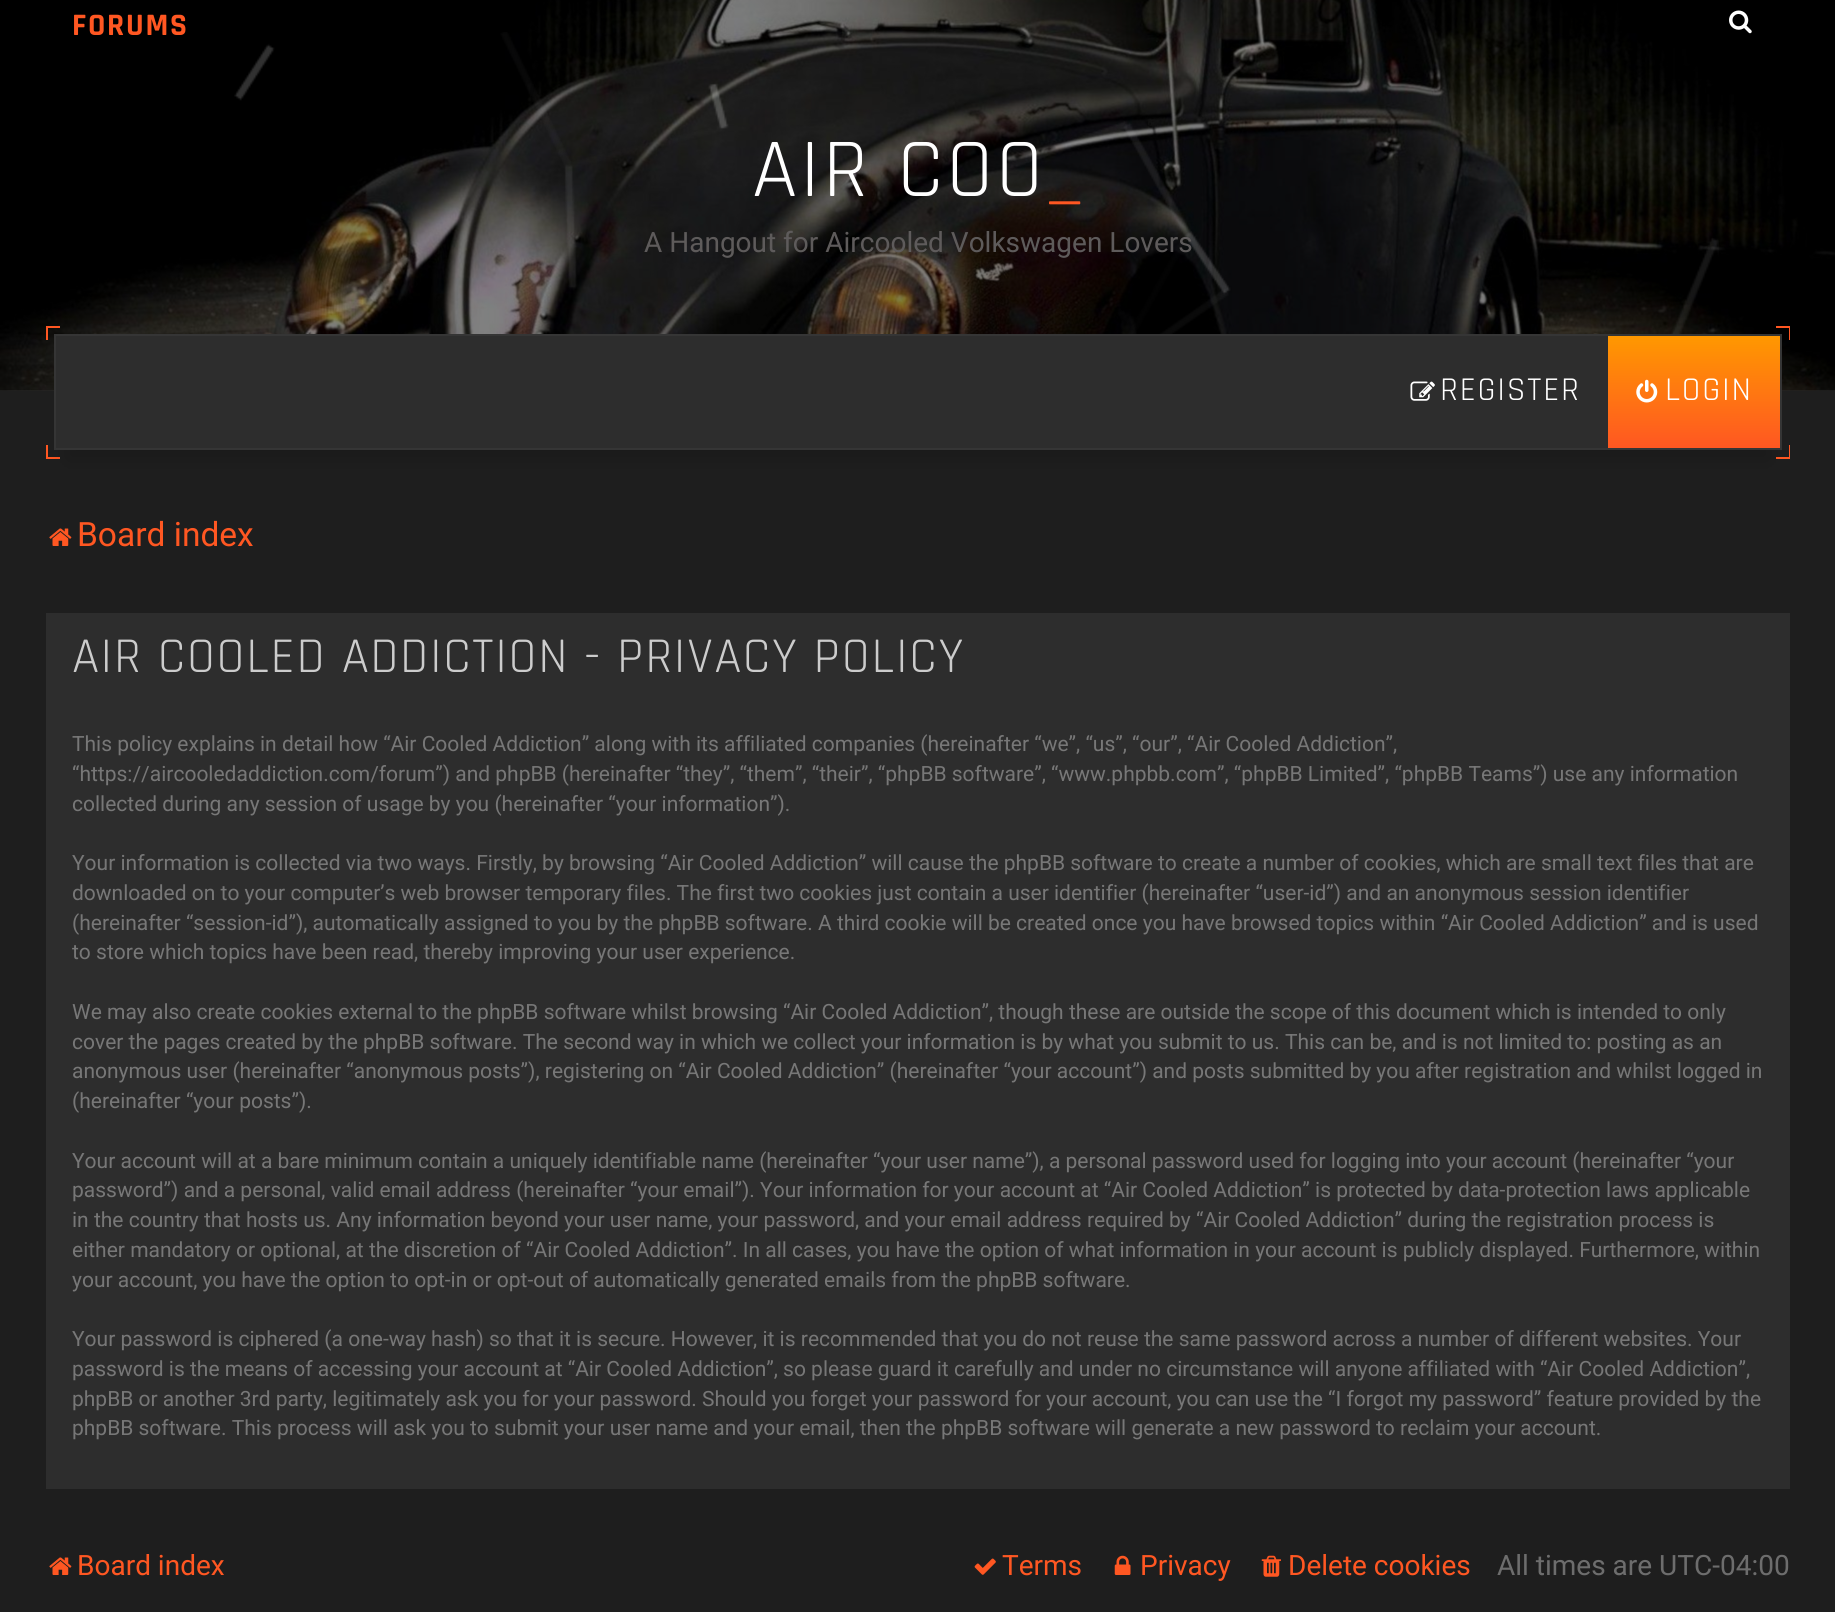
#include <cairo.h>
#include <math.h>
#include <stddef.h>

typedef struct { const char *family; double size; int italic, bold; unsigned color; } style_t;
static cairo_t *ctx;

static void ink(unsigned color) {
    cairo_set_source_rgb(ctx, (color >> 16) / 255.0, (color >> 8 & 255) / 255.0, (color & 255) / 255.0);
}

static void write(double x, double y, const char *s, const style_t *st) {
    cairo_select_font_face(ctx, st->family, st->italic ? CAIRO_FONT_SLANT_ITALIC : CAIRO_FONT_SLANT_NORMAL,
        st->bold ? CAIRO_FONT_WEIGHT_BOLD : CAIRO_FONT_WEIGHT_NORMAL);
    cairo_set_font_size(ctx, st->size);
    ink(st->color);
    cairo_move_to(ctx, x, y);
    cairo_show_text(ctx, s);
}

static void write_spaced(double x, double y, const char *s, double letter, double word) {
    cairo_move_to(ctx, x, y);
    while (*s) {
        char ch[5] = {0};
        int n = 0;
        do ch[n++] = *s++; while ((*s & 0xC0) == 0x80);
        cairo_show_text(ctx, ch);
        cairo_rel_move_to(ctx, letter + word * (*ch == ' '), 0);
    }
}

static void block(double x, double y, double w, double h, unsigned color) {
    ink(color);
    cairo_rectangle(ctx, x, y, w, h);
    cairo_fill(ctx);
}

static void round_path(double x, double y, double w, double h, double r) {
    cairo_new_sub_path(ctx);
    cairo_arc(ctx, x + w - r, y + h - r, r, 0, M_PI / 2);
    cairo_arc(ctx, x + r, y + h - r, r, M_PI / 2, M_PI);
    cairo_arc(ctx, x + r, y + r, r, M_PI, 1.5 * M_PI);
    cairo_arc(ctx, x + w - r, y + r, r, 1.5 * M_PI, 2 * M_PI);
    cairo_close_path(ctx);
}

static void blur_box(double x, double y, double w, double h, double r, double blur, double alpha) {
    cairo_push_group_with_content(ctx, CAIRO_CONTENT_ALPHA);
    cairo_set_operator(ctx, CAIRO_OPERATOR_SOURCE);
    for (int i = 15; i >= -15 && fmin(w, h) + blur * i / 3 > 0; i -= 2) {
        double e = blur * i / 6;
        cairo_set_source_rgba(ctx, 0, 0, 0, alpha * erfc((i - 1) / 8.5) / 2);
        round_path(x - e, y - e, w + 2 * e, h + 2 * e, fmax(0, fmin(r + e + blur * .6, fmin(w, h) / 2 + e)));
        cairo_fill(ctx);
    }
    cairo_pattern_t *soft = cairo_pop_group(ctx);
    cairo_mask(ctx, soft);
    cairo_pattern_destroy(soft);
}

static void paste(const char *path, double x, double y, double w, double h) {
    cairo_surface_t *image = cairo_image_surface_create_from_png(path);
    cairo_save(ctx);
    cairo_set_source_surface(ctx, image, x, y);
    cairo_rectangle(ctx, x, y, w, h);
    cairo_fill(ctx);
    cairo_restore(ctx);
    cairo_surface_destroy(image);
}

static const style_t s1 = {"Roboto", 28, 0, 0, 0x5e5b5b};
static const style_t s2 = {"Roboto", 33.5, 0, 0, 0xff5722};
static const style_t s3 = {"Roboto", 21, 0, 0, 0x777777};
static const style_t s4 = {"Roboto", 28, 0, 0, 0xff5722};
static const style_t s5 = {"Roboto", 28, 0, 0, 0x6d6d6d};

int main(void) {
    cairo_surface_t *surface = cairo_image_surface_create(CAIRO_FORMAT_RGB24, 1835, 1612);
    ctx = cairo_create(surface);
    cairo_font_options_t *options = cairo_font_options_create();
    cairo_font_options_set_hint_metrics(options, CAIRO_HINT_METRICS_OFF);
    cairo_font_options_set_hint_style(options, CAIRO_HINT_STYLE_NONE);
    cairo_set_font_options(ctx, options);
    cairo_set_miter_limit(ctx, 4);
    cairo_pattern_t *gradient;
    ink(0x1e1e1e);
    cairo_paint(ctx);
    block(0, 0, 1835, 390, 0x000000);
    paste("pic1.png", 0, 0, 1835, 391);
    cairo_select_font_face(ctx, "Rajdhani", CAIRO_FONT_SLANT_NORMAL, CAIRO_FONT_WEIGHT_BOLD);
    cairo_set_font_size(ctx, 31.5);
    ink(0xff5722);
    write_spaced(72, 35, "FORUMS", 1.75, 0);
    paste("pic2.png", 1729, 10, 23, 24);
    paste("pic3.png", 234, 32, 1485, 302);
    cairo_select_font_face(ctx, "Rajdhani", CAIRO_FONT_SLANT_NORMAL, CAIRO_FONT_WEIGHT_NORMAL);
    cairo_set_font_size(ctx, 84);
    ink(0xffffff);
    write_spaced(752, 196, "AIR COO", 3.5, 0);
    ink(0xff5722);
    write_spaced(1049, 196, "_", 3.5, 0);
    write(644, 252, "A Hangout for Aircooled Volkswagen Lovers", &s1);
    block(1776, 457, 14, 2, 0xff5722);
    block(46, 457, 14, 2, 0xff5722);
    block(1776, 326, 14, 2, 0xff5722);
    block(46, 326, 14, 2, 0xff5722);
    block(1789, 445, 1, 14, 0xff5722);
    block(1789, 326, 1, 14, 0xff5722);
    block(46, 445, 2, 14, 0xff5722);
    block(46, 326, 2, 14, 0xff5722);
    ink(0x000000);
    blur_box(68, 371, 1700, 88, 0, 9, 0.14);
    block(56, 336, 1552, 112, 0x2d2d2d);
    cairo_rectangle(ctx, 55, 335, 1726, 114);
    ink(0x353535);
    cairo_stroke(ctx);
    paste("pic4.png", 1410, 381, 25, 20);
    cairo_select_font_face(ctx, "Rajdhani", CAIRO_FONT_SLANT_NORMAL, CAIRO_FONT_WEIGHT_NORMAL);
    cairo_set_font_size(ctx, 33.5);
    ink(0xffffff);
    write_spaced(1440, 400, "REGISTER", 1.75, 0);
    gradient = cairo_pattern_create_linear(1694, 336, 1694, 448);
    cairo_pattern_add_color_stop_rgba(gradient, 0, 1, 0.596, 0, 1);
    cairo_pattern_add_color_stop_rgba(gradient, 1, 1, 0.341, 0.133, 1);
    cairo_set_source(ctx, gradient);
    cairo_pattern_destroy(gradient);
    cairo_rectangle(ctx, 1608, 336, 172, 112);
    cairo_fill(ctx);
    paste("pic5.png", 1636, 379, 22, 24);
    ink(0xffffff);
    write_spaced(1665, 400, "LOGIN", 1.75, 0);
    paste("pic6.png", 49, 528, 23, 18);
    write(77, 546, "Board index", &s2);
    block(46, 613, 1744, 876, 0x2d2d2d);
    cairo_select_font_face(ctx, "Rajdhani", CAIRO_FONT_SLANT_NORMAL, CAIRO_FONT_WEIGHT_NORMAL);
    cairo_set_font_size(ctx, 50.4);
    ink(0xcccccc);
    write_spaced(72, 672, "AIR COOLED ADDICTION - PRIVACY POLICY", 1.75, 0);
    write(72, 751, "This policy explains in detail how “Air Cooled Addiction” along with its affiliated companies (hereinafter “we”, “us”, “our”, “Air Cooled Addiction”,", &s3);
    write(72, 781, "“https://aircooledaddiction.com/forum”) and phpBB (hereinafter “they”, “them”, “their”, “phpBB software”, “www.phpbb.com”, “phpBB Limited”, “phpBB Teams”) use any information", &s3);
    write(72, 811, "collected during any session of usage by you (hereinafter “your information”).", &s3);
    write(72, 870, "Your information is collected via two ways. Firstly, by browsing “Air Cooled Addiction” will cause the phpBB software to create a number of cookies, which are small text files that are", &s3);
    write(72, 900, "downloaded on to your computer’s web browser temporary files. The first two cookies just contain a user identifier (hereinafter “user-id”) and an anonymous session identifier", &s3);
    write(72, 930, "(hereinafter “session-id”), automatically assigned to you by the phpBB software. A third cookie will be created once you have browsed topics within “Air Cooled Addiction” and is used", &s3);
    write(72, 959, "to store which topics have been read, thereby improving your user experience.", &s3);
    write(72, 1019, "We may also create cookies external to the phpBB software whilst browsing “Air Cooled Addiction”, though these are outside the scope of this document which is intended to only", &s3);
    write(72, 1049, "cover the pages created by the phpBB software. The second way in which we collect your information is by what you submit to us. This can be, and is not limited to: posting as an", &s3);
    write(72, 1078, "anonymous user (hereinafter “anonymous posts”), registering on “Air Cooled Addiction” (hereinafter “your account”) and posts submitted by you after registration and whilst logged in", &s3);
    write(72, 1108, "(hereinafter “your posts”).", &s3);
    write(72, 1168, "Your account will at a bare minimum contain a uniquely identifiable name (hereinafter “your user name”), a personal password used for logging into your account (hereinafter “your", &s3);
    write(72, 1197, "password”) and a personal, valid email address (hereinafter “your email”). Your information for your account at “Air Cooled Addiction” is protected by data-protection laws applicable", &s3);
    write(72, 1227, "in the country that hosts us. Any information beyond your user name, your password, and your email address required by “Air Cooled Addiction” during the registration process is", &s3);
    write(72, 1257, "either mandatory or optional, at the discretion of “Air Cooled Addiction”. In all cases, you have the option of what information in your account is publicly displayed. Furthermore, within", &s3);
    write(72, 1287, "your account, you have the option to opt-in or opt-out of automatically generated emails from the phpBB software.", &s3);
    write(72, 1346, "Your password is ciphered (a one-way hash) so that it is secure. However, it is recommended that you do not reuse the same password across a number of different websites. Your", &s3);
    write(72, 1376, "password is the means of accessing your account at “Air Cooled Addiction”, so please guard it carefully and under no circumstance will anyone affiliated with “Air Cooled Addiction”,", &s3);
    write(72, 1406, "phpBB or another 3rd party, legitimately ask you for your password. Should you forget your password for your account, you can use the “I forgot my password” feature provided by the", &s3);
    write(72, 1435, "phpBB software. This process will ask you to submit your user name and your email, then the phpBB software will generate a new password to reclaim your account.", &s3);
    paste("pic6.png", 49, 1557, 23, 18);
    write(77, 1575, "Board index", &s4);
    paste("pic7.png", 974, 1558, 22, 17);
    write(1002, 1575, "Terms", &s4);
    paste("pic8.png", 1114, 1555, 17, 20);
    write(1140, 1575, "Privacy", &s4);
    paste("pic9.png", 1261, 1555, 20, 22);
    write(1288, 1575, "Delete cookies", &s4);
    write(1497, 1575, "All times are UTC-04:00", &s5);
    cairo_surface_write_to_png(surface, "screenshot.png");
    cairo_font_options_destroy(options);
    cairo_destroy(ctx);
    cairo_surface_destroy(surface);
    return 0;
}
